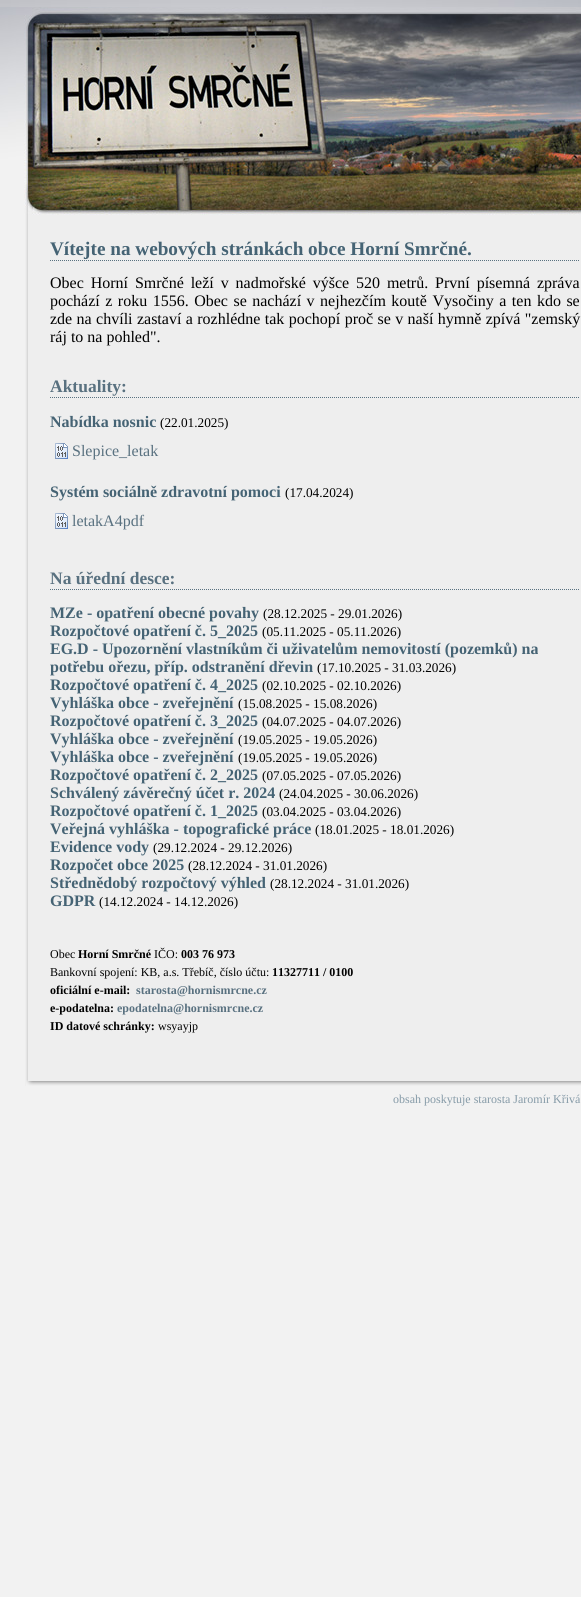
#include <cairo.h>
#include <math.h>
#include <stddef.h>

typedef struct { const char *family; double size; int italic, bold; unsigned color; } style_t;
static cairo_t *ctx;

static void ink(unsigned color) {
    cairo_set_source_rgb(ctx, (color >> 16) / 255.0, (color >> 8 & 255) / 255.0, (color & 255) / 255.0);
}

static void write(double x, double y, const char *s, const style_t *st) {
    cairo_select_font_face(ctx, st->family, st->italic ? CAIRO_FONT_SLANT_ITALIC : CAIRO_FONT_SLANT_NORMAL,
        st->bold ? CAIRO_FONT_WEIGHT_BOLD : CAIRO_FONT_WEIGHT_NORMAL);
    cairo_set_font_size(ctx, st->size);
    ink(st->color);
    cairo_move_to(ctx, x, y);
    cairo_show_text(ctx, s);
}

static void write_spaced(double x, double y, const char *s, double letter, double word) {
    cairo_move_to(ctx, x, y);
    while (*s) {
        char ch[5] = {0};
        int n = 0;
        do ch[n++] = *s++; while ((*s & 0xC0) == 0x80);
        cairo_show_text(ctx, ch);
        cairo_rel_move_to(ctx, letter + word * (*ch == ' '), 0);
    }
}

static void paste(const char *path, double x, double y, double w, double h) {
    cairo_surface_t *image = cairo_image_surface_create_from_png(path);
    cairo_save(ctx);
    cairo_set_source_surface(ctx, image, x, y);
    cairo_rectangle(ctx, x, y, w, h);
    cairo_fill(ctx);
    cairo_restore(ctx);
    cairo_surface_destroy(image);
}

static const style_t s1 = {"Liberation Serif", 19.2, 0, 1, 0x456374};
static const style_t s2 = {"Liberation Serif", 16, 0, 0, 0x000000};
static const style_t s3 = {"Liberation Serif", 17.5, 0, 1, 0x597180};
static const style_t s4 = {"Liberation Serif", 16, 0, 1, 0x456374};
static const style_t s5 = {"Liberation Serif", 13.25, 0, 0, 0x000000};
static const style_t s6 = {"Liberation Serif", 16, 0, 0, 0x597180};
static const style_t s7 = {"Liberation Serif", 12, 0, 0, 0x000000};
static const style_t s8 = {"Liberation Serif", 12, 0, 1, 0x000000};
static const style_t s9 = {"Liberation Serif", 12, 0, 1, 0x597180};
static const style_t s10 = {"Liberation Serif", 12, 0, 0, 0x859aa7};

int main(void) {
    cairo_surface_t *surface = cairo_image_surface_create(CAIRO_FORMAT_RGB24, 581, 1597);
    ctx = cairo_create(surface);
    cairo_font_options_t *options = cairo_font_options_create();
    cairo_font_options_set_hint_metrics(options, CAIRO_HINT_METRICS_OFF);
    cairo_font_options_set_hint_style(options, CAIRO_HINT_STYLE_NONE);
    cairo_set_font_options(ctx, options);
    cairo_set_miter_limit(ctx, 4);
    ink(0xf2f2f2);
    cairo_paint(ctx);
    paste("pic1.png", 0, 0, 581, 7);
    paste("pic2.png", 0, 215, 581, 871);
    paste("pic3.png", 26, 1080, 555, 6);
    paste("pic4.png", 0, 7, 581, 208);
    cairo_new_path(ctx);
    cairo_move_to(ctx, 50, 260.5);
    cairo_line_to(ctx, 580, 260.5);
    ink(0x597180);
    cairo_set_line_width(ctx, 1);
    cairo_set_dash(ctx, (double[]){1, 1}, 2, 0);
    cairo_stroke(ctx);
    write(50, 255, "Vítejte na webových stránkách obce Horní Smrčné.", &s1);
    cairo_select_font_face(ctx, "Liberation Serif", CAIRO_FONT_SLANT_NORMAL, CAIRO_FONT_WEIGHT_NORMAL);
    cairo_set_font_size(ctx, 16);
    ink(0x000000);
    write_spaced(50, 288, "Obec Horní Smrčné leží v nadmořské výšce 520 metrů. První písemná zpráva", 0, 2.9);
    write_spaced(50, 306, "pochází z roku 1556. Obec se nachází v nejhezčím koutě Vysočiny a ten kdo se", 0, 1.5);
    write_spaced(50, 324, "zde na chvíli zastaví a rozhlédne tak pochopí proč se v naší hymně zpívá \"zemský", 0, 0.4);
    write(50, 342, "ráj to na pohled\".", &s2);
    cairo_new_path(ctx);
    cairo_move_to(ctx, 50, 397.5);
    cairo_line_to(ctx, 580, 397.5);
    ink(0x597180);
    cairo_stroke(ctx);
    write(50, 392, "Aktuality:", &s3);
    write(50, 427, "Nabídka nosnic", &s4);
    write(160, 427, "(22.01.2025)", &s5);
    paste("pic5.png", 55, 443, 13, 16);
    write(72, 456, "Slepice_letak", &s6);
    write(50, 497, "Systém sociálně zdravotní pomoci", &s4);
    write(285, 497, "(17.04.2024)", &s5);
    paste("pic5.png", 55, 513, 13, 16);
    write(72, 526, "letakA4pdf", &s6);
    cairo_new_path(ctx);
    cairo_move_to(ctx, 50, 589.5);
    cairo_line_to(ctx, 580, 589.5);
    cairo_stroke(ctx);
    write(50, 584, "Na úřední desce:", &s3);
    write(50, 618, "MZe - opatření obecné povahy", &s4);
    write(263, 618, "(28.12.2025 - 29.01.2026)", &s5);
    write(50, 636, "Rozpočtové opatření č. 5_2025", &s4);
    write(262, 636, "(05.11.2025 - 05.11.2026)", &s5);
    write(50, 654, "EG.D - Upozornění vlastníkům či uživatelům nemovitostí (pozemků) na", &s4);
    write(50, 672, "potřebu ořezu, příp. odstranění dřevin", &s4);
    write(317, 672, "(17.10.2025 - 31.03.2026)", &s5);
    write(50, 690, "Rozpočtové opatření č. 4_2025", &s4);
    write(262, 690, "(02.10.2025 - 02.10.2026)", &s5);
    write(50, 708, "Vyhláška obce - zveřejnění", &s4);
    write(238, 708, "(15.08.2025 - 15.08.2026)", &s5);
    write(50, 726, "Rozpočtové opatření č. 3_2025", &s4);
    write(262, 726, "(04.07.2025 - 04.07.2026)", &s5);
    write(50, 744, "Vyhláška obce - zveřejnění", &s4);
    write(238, 744, "(19.05.2025 - 19.05.2026)", &s5);
    write(50, 762, "Vyhláška obce - zveřejnění", &s4);
    write(238, 762, "(19.05.2025 - 19.05.2026)", &s5);
    write(50, 780, "Rozpočtové opatření č. 2_2025", &s4);
    write(262, 780, "(07.05.2025 - 07.05.2026)", &s5);
    write(50, 798, "Schválený závěrečný účet r. 2024", &s4);
    write(279, 798, "(24.04.2025 - 30.06.2026)", &s5);
    write(50, 816, "Rozpočtové opatření č. 1_2025", &s4);
    write(262, 816, "(03.04.2025 - 03.04.2026)", &s5);
    write(50, 834, "Veřejná vyhláška - topografické práce", &s4);
    write(315, 834, "(18.01.2025 - 18.01.2026)", &s5);
    write(50, 852, "Evidence vody", &s4);
    write(153, 852, "(29.12.2024 - 29.12.2026)", &s5);
    write(50, 870, "Rozpočet obce 2025", &s4);
    write(188, 870, "(28.12.2024 - 31.01.2026)", &s5);
    write(50, 888, "Střednědobý rozpočtový výhled", &s4);
    write(270, 888, "(28.12.2024 - 31.01.2026)", &s5);
    write(50, 906, "GDPR", &s4);
    write(99, 906, "(14.12.2024 - 14.12.2026)", &s5);
    write(50, 958, "Obec", &s7);
    write(78, 958, "Horní Smrčné", &s8);
    write(154, 958, "IČO:", &s7);
    write(181, 958, "003 76 973", &s8);
    write(50, 976, "Bankovní spojení: KB, a.s. Třebíč, číslo účtu:", &s7);
    write(272, 976, "11327711 / 0100", &s8);
    write(50, 994, "oficiální e-mail:", &s8);
    write(136, 994, "starosta@hornismrcne.cz", &s9);
    write(50, 1012, "e-podatelna:", &s8);
    write(117, 1012, "epodatelna@hornismrcne.cz", &s9);
    write(50, 1030, "ID datové schránky:", &s8);
    write(158, 1030, "wsyayjp", &s7);
    write(393, 1103, "obsah poskytuje starosta Jaromír Křivá", &s10);
    cairo_surface_write_to_png(surface, "screenshot.png");
    cairo_font_options_destroy(options);
    cairo_destroy(ctx);
    cairo_surface_destroy(surface);
    return 0;
}
